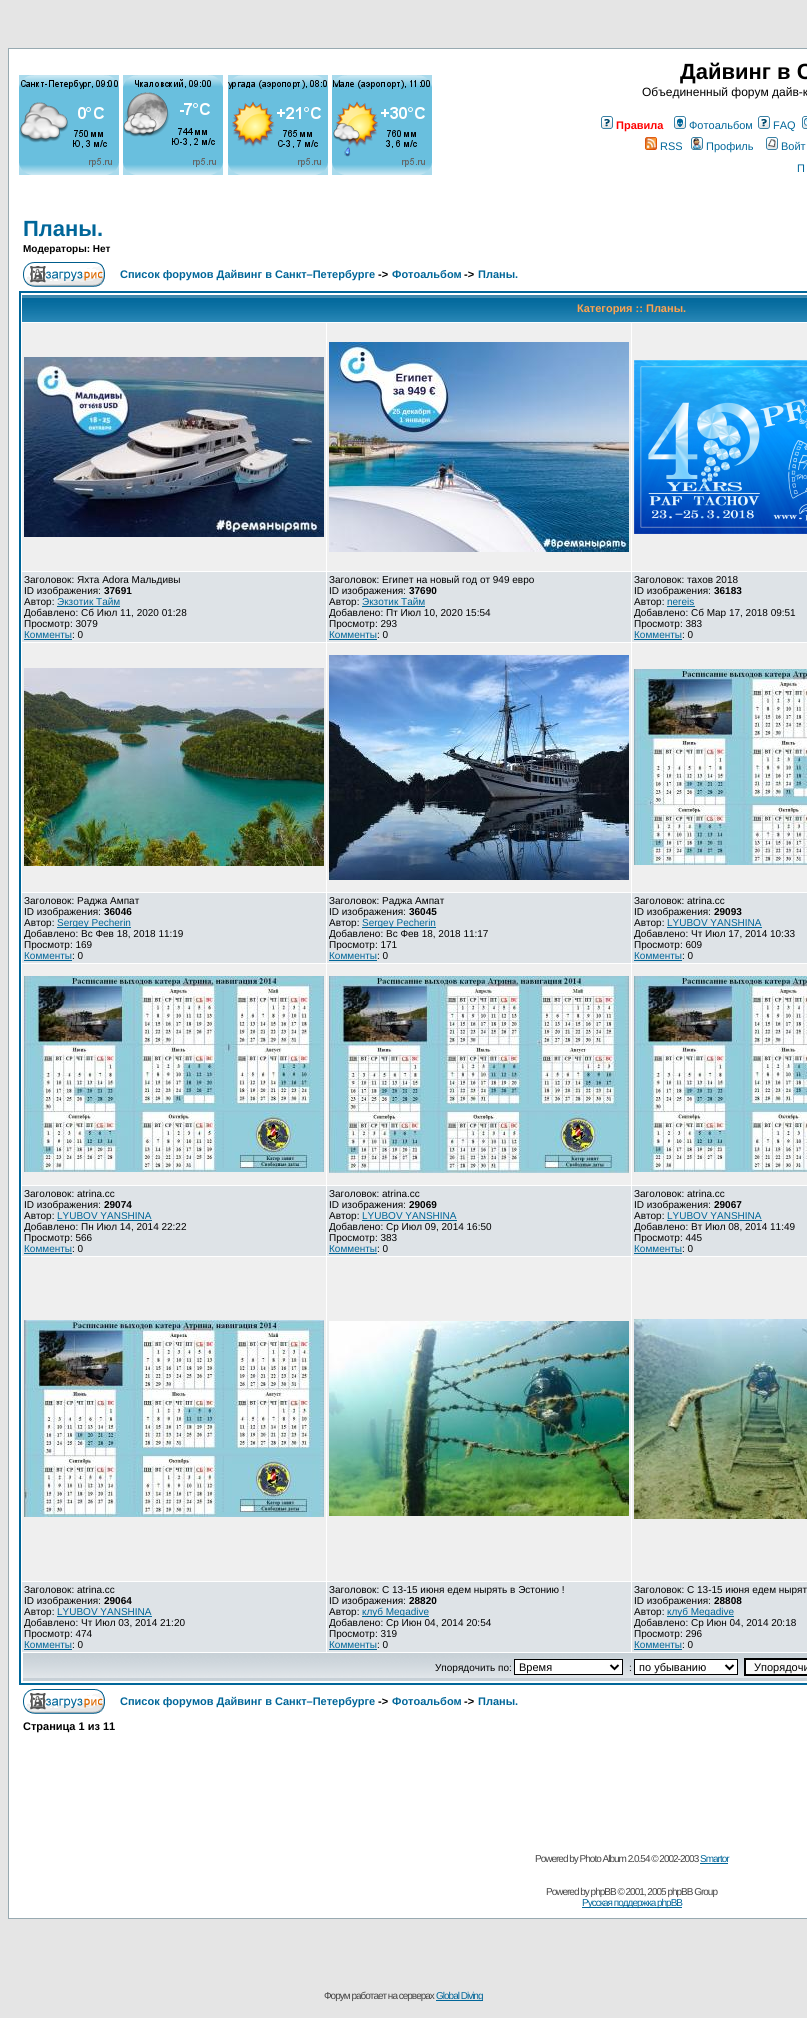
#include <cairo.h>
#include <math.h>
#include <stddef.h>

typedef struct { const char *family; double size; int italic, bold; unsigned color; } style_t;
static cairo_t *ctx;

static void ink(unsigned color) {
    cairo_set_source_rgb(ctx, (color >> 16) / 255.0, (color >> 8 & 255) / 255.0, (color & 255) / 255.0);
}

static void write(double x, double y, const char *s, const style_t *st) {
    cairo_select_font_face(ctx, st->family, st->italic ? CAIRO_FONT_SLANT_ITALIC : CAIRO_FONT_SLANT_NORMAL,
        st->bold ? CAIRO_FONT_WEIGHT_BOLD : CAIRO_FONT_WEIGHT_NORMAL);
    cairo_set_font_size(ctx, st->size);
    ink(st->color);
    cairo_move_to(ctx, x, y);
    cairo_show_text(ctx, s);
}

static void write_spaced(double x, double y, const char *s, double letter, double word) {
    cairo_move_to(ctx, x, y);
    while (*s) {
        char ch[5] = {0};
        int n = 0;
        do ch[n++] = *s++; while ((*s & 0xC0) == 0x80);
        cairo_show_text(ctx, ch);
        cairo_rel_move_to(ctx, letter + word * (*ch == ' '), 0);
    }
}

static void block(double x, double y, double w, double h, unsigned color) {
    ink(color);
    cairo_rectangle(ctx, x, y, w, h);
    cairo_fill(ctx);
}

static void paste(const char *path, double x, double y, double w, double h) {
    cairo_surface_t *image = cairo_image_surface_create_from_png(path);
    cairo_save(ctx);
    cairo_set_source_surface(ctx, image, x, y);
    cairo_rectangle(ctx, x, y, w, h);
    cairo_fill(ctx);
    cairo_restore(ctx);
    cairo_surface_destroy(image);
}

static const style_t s1 = {"Liberation Sans", 22, 0, 1, 0x000000};
static const style_t s2 = {"Liberation Sans", 12, 0, 0, 0x000000};
static const style_t s3 = {"Liberation Sans", 11, 0, 1, 0xff0000};
static const style_t s4 = {"Liberation Sans", 11, 0, 0, 0x006699};
static const style_t s5 = {"Liberation Sans", 22, 0, 1, 0x006699};
static const style_t s6 = {"Liberation Sans", 10, 0, 1, 0x000000};
static const style_t s7 = {"Liberation Sans", 11, 0, 1, 0x006699};
static const style_t s8 = {"Liberation Sans", 11, 0, 1, 0x000000};
static const style_t s9 = {"Liberation Sans", 11, 0, 1, 0xffa34f};
static const style_t s10 = {"Liberation Sans", 10, 0, 0, 0x000000};
static const style_t s11 = {"Liberation Sans", 10, 0, 0, 0x006699};
static const style_t s12 = {"Liberation Sans", 11, 0, 0, 0x000000};

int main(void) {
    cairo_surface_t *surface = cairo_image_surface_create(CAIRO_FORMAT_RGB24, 807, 2018);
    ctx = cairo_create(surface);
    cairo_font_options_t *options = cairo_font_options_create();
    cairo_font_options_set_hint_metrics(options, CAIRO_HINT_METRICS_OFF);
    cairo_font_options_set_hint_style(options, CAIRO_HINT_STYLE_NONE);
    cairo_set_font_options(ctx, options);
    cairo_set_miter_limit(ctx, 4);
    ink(0xe5e5e5);
    cairo_paint(ctx);
    ink(0xffffff);
    cairo_rectangle(ctx, 8.5, 48.5, 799, 1870);
    cairo_fill_preserve(ctx);
    ink(0x98aab1);
    cairo_set_line_width(ctx, 1);
    cairo_stroke(ctx);
    paste("pic1.png", 19, 75, 100, 100);
    paste("pic2.png", 123, 75, 100, 100);
    paste("pic3.png", 228, 75, 100, 100);
    paste("pic4.png", 332, 75, 100, 100);
    write(680, 79, "Дайвинг в С", &s1);
    write(642, 96, "Объединенный форум дайв-к", &s2);
    paste("pic5.png", 601, 116, 12, 13);
    write(616, 129, "Правила", &s3);
    paste("pic6.png", 674, 116, 12, 13);
    write(689, 129, "Фотоальбом", &s4);
    paste("pic5.png", 758, 116, 12, 13);
    write(773, 129, "FAQ", &s4);
    paste("pic7.png", 802, 116, 5, 13);
    paste("pic8.png", 645, 137, 12, 13);
    write(660, 150, "RSS", &s4);
    paste("pic9.png", 691, 137, 12, 13);
    write(706, 150, "Профиль", &s4);
    paste("pic10.png", 766, 137, 12, 13);
    write(781, 150, "Войт", &s4);
    write(797, 172, "П", &s4);
    write(23, 236, "Планы.", &s5);
    write(23, 252, "Модераторы: Нет", &s6);
    paste("pic11.png", 23, 262, 82, 25);
    write(120, 278, "Список форумов Дайвинг в Санкт–Петербурге", &s7);
    write(378, 278, "->", &s8);
    write(392, 278, "Фотоальбом", &s7);
    write(464, 278, "->", &s8);
    write(478, 278, "Планы.", &s7);
    cairo_rectangle(ctx, 20, 292, 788, 1392);
    cairo_set_line_width(ctx, 2);
    cairo_stroke(ctx);
    paste("pic12.png", 22, 295, 785, 27);
    write(577, 312, "Категория :: Планы.", &s9);
    block(22, 323, 304, 248, 0xefefef);
    paste("pic13.png", 24, 357, 300, 180);
    block(327, 323, 304, 248, 0xefefef);
    paste("pic14.png", 329, 342, 300, 210);
    block(632, 323, 175, 248, 0xefefef);
    paste("pic15.png", 634, 360, 173, 174);
    block(22, 572, 304, 70, 0xdee3e7);
    write(24, 583, "Заголовок: Яхта Adora Мальдивы", &s10);
    write(24, 594, "ID изображения:", &s10);
    write(104, 594, "37691", &s6);
    write(24, 605, "Автор:", &s10);
    block(57, 606, 63, 1, 0x006699);
    write(57, 605, "Экзотик Тайм", &s11);
    write(24, 616, "Добавлено: Сб Июл 11, 2020 01:28", &s10);
    write(24, 627, "Просмотр: 3079", &s10);
    write(24, 638, "Комменты", &s11);
    block(24, 639, 48, 1, 0x006699);
    write(72, 638, ": 0", &s10);
    block(327, 572, 304, 70, 0xdee3e7);
    write(329, 583, "Заголовок: Египет на новый год от 949 евро", &s10);
    write(329, 594, "ID изображения:", &s10);
    write(409, 594, "37690", &s6);
    write(329, 605, "Автор:", &s10);
    block(362, 606, 63, 1, 0x006699);
    write(362, 605, "Экзотик Тайм", &s11);
    write(329, 616, "Добавлено: Пт Июл 10, 2020 15:54", &s10);
    write(329, 627, "Просмотр: 293", &s10);
    write(329, 638, "Комменты", &s11);
    block(329, 639, 48, 1, 0x006699);
    write(377, 638, ": 0", &s10);
    block(632, 572, 175, 70, 0xdee3e7);
    write(634, 583, "Заголовок: тахов 2018", &s10);
    write(634, 594, "ID изображения:", &s10);
    write(714, 594, "36183", &s6);
    write(634, 605, "Автор:", &s10);
    block(667, 606, 28, 1, 0x006699);
    write(667, 605, "nereis", &s11);
    write(634, 616, "Добавлено: Сб Мар 17, 2018 09:51", &s10);
    write(634, 627, "Просмотр: 383", &s10);
    write(634, 638, "Комменты", &s11);
    block(634, 639, 48, 1, 0x006699);
    write(682, 638, ": 0", &s10);
    block(22, 643, 304, 249, 0xefefef);
    paste("pic16.png", 24, 668, 300, 198);
    block(327, 643, 304, 249, 0xefefef);
    paste("pic17.png", 329, 655, 300, 225);
    block(632, 643, 175, 249, 0xefefef);
    paste("pic18.png", 634, 669, 173, 196);
    block(22, 893, 304, 70, 0xdee3e7);
    write(24, 904, "Заголовок: Раджа Ампат", &s10);
    write(24, 915, "ID изображения:", &s10);
    write(104, 915, "36046", &s6);
    write(24, 926, "Автор:", &s10);
    block(57, 927, 74, 1, 0x006699);
    write(57, 926, "Sergey Pecherin", &s11);
    write(24, 937, "Добавлено: Вс Фев 18, 2018 11:19", &s10);
    write(24, 948, "Просмотр: 169", &s10);
    write(24, 959, "Комменты", &s11);
    block(24, 960, 48, 1, 0x006699);
    write(72, 959, ": 0", &s10);
    block(327, 893, 304, 70, 0xdee3e7);
    write(329, 904, "Заголовок: Раджа Ампат", &s10);
    write(329, 915, "ID изображения:", &s10);
    write(409, 915, "36045", &s6);
    write(329, 926, "Автор:", &s10);
    block(362, 927, 74, 1, 0x006699);
    write(362, 926, "Sergey Pecherin", &s11);
    write(329, 937, "Добавлено: Вс Фев 18, 2018 11:17", &s10);
    write(329, 948, "Просмотр: 171", &s10);
    write(329, 959, "Комменты", &s11);
    block(329, 960, 48, 1, 0x006699);
    write(377, 959, ": 0", &s10);
    block(632, 893, 175, 70, 0xdee3e7);
    write(634, 904, "Заголовок: atrina.cc", &s10);
    write(634, 915, "ID изображения:", &s10);
    write(714, 915, "29093", &s6);
    write(634, 926, "Автор:", &s10);
    write(667, 926, "LYUBOV YANSHINA", &s11);
    block(667, 927, 95, 1, 0x006699);
    write(634, 937, "Добавлено: Чт Июл 17, 2014 10:33", &s10);
    write(634, 948, "Просмотр: 609", &s10);
    write(634, 959, "Комменты", &s11);
    block(634, 960, 48, 1, 0x006699);
    write(682, 959, ": 0", &s10);
    block(22, 964, 304, 221, 0xefefef);
    paste("pic19.png", 24, 976, 300, 196);
    block(327, 964, 304, 221, 0xefefef);
    paste("pic20.png", 329, 976, 300, 197);
    block(632, 964, 175, 221, 0xefefef);
    paste("pic21.png", 634, 976, 173, 196);
    block(22, 1186, 304, 70, 0xdee3e7);
    write(24, 1197, "Заголовок: atrina.cc", &s10);
    write(24, 1208, "ID изображения:", &s10);
    write(104, 1208, "29074", &s6);
    write(24, 1219, "Автор:", &s10);
    write(57, 1219, "LYUBOV YANSHINA", &s11);
    block(57, 1220, 95, 1, 0x006699);
    write(24, 1230, "Добавлено: Пн Июл 14, 2014 22:22", &s10);
    write(24, 1241, "Просмотр: 566", &s10);
    write(24, 1252, "Комменты", &s11);
    block(24, 1253, 48, 1, 0x006699);
    write(72, 1252, ": 0", &s10);
    block(327, 1186, 304, 70, 0xdee3e7);
    write(329, 1197, "Заголовок: atrina.cc", &s10);
    write(329, 1208, "ID изображения:", &s10);
    write(409, 1208, "29069", &s6);
    write(329, 1219, "Автор:", &s10);
    write(362, 1219, "LYUBOV YANSHINA", &s11);
    block(362, 1220, 95, 1, 0x006699);
    write(329, 1230, "Добавлено: Ср Июл 09, 2014 16:50", &s10);
    write(329, 1241, "Просмотр: 383", &s10);
    write(329, 1252, "Комменты", &s11);
    block(329, 1253, 48, 1, 0x006699);
    write(377, 1252, ": 0", &s10);
    block(632, 1186, 175, 70, 0xdee3e7);
    write(634, 1197, "Заголовок: atrina.cc", &s10);
    write(634, 1208, "ID изображения:", &s10);
    write(714, 1208, "29067", &s6);
    write(634, 1219, "Автор:", &s10);
    write(667, 1219, "LYUBOV YANSHINA", &s11);
    block(667, 1220, 95, 1, 0x006699);
    write(634, 1230, "Добавлено: Вт Июл 08, 2014 11:49", &s10);
    write(634, 1241, "Просмотр: 445", &s10);
    write(634, 1252, "Комменты", &s11);
    block(634, 1253, 48, 1, 0x006699);
    write(682, 1252, ": 0", &s10);
    block(22, 1257, 304, 324, 0xefefef);
    paste("pic22.png", 24, 1320, 300, 197);
    block(327, 1257, 304, 324, 0xefefef);
    paste("pic23.png", 329, 1321, 300, 195);
    block(632, 1257, 175, 324, 0xefefef);
    paste("pic24.png", 634, 1319, 173, 200);
    block(22, 1582, 304, 70, 0xdee3e7);
    write(24, 1593, "Заголовок: atrina.cc", &s10);
    write(24, 1604, "ID изображения:", &s10);
    write(104, 1604, "29064", &s6);
    write(24, 1615, "Автор:", &s10);
    write(57, 1615, "LYUBOV YANSHINA", &s11);
    block(57, 1616, 95, 1, 0x006699);
    write(24, 1626, "Добавлено: Чт Июл 03, 2014 21:20", &s10);
    write(24, 1637, "Просмотр: 474", &s10);
    write(24, 1648, "Комменты", &s11);
    block(24, 1649, 48, 1, 0x006699);
    write(72, 1648, ": 0", &s10);
    block(327, 1582, 304, 70, 0xdee3e7);
    write(329, 1593, "Заголовок: С 13-15 июня едем нырять в Эстонию !", &s10);
    write(329, 1604, "ID изображения:", &s10);
    write(409, 1604, "28820", &s6);
    write(329, 1615, "Автор:", &s10);
    block(362, 1616, 67, 1, 0x006699);
    write(362, 1615, "клуб Megadive", &s11);
    write(329, 1626, "Добавлено: Ср Июн 04, 2014 20:54", &s10);
    write(329, 1637, "Просмотр: 319", &s10);
    write(329, 1648, "Комменты", &s11);
    block(329, 1649, 48, 1, 0x006699);
    write(377, 1648, ": 0", &s10);
    block(632, 1582, 175, 70, 0xdee3e7);
    write(634, 1593, "Заголовок: С 13-15 июня едем нырят", &s10);
    write(634, 1604, "ID изображения:", &s10);
    write(714, 1604, "28808", &s6);
    write(634, 1615, "Автор:", &s10);
    block(667, 1616, 67, 1, 0x006699);
    write(667, 1615, "клуб Megadive", &s11);
    write(634, 1626, "Добавлено: Ср Июн 04, 2014 20:18", &s10);
    write(634, 1637, "Просмотр: 296", &s10);
    write(634, 1648, "Комменты", &s11);
    block(634, 1649, 48, 1, 0x006699);
    write(682, 1648, ": 0", &s10);
    paste("pic25.png", 23, 1653, 784, 28);
    write(435, 1671, "Упорядочить по:", &s10);
    ink(0xffffff);
    cairo_rectangle(ctx, 514.5, 1659.5, 108, 15);
    cairo_fill_preserve(ctx);
    ink(0x000000);
    cairo_set_line_width(ctx, 1);
    cairo_stroke(ctx);
    cairo_new_path(ctx);
    cairo_move_to(ctx, 610.5, 1665);
    cairo_line_to(ctx, 614.5, 1669);
    cairo_line_to(ctx, 618.5, 1665);
    cairo_set_line_width(ctx, 2);
    cairo_stroke(ctx);
    write(519, 1671, "Время", &s12);
    write(629, 1671, ":", &s10);
    ink(0xffffff);
    cairo_rectangle(ctx, 634.5, 1659.5, 103, 15);
    cairo_fill_preserve(ctx);
    ink(0x000000);
    cairo_set_line_width(ctx, 1);
    cairo_stroke(ctx);
    cairo_new_path(ctx);
    cairo_move_to(ctx, 725.5, 1665);
    cairo_line_to(ctx, 729.5, 1669);
    cairo_line_to(ctx, 733.5, 1665);
    cairo_set_line_width(ctx, 2);
    cairo_stroke(ctx);
    write(639, 1671, "по убыванию", &s12);
    ink(0xfafafa);
    cairo_rectangle(ctx, 745, 1659, 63, 16);
    cairo_fill_preserve(ctx);
    ink(0x000000);
    cairo_stroke(ctx);
    write(754, 1671, "Упорядочи", &s12);
    paste("pic11.png", 23, 1689, 82, 25);
    write(120, 1705, "Список форумов Дайвинг в Санкт–Петербурге", &s7);
    write(378, 1705, "->", &s8);
    write(392, 1705, "Фотоальбом", &s7);
    write(464, 1705, "->", &s8);
    write(478, 1705, "Планы.", &s7);
    write(23, 1730, "Страница 1 из 11", &s8);
    cairo_select_font_face(ctx, "Liberation Sans", CAIRO_FONT_SLANT_NORMAL, CAIRO_FONT_WEIGHT_NORMAL);
    cairo_set_font_size(ctx, 10);
    ink(0x444444);
    write_spaced(535, 1862, "Powered by Photo Album 2.0.54 © 2002-2003", -1, 0);
    ink(0x006699);
    write_spaced(700, 1862, "Smartor", -1, 0);
    block(700, 1863, 28, 1, 0x006699);
    ink(0x444444);
    write_spaced(546, 1895, "Powered by phpBB © 2001, 2005 phpBB Group", -1, 0);
    block(582, 1907, 100, 1, 0x006699);
    write_spaced(582, 1906, "Русская поддержка phpBB", -1, 0);
    ink(0x444444);
    write_spaced(324, 1999, "Форум работает на серверах", -1, 0);
    block(436, 2000, 47, 1, 0x006699);
    write_spaced(436, 1999, "Global Diving", -1, 0);
    cairo_surface_write_to_png(surface, "screenshot.png");
    cairo_font_options_destroy(options);
    cairo_destroy(ctx);
    cairo_surface_destroy(surface);
    return 0;
}
